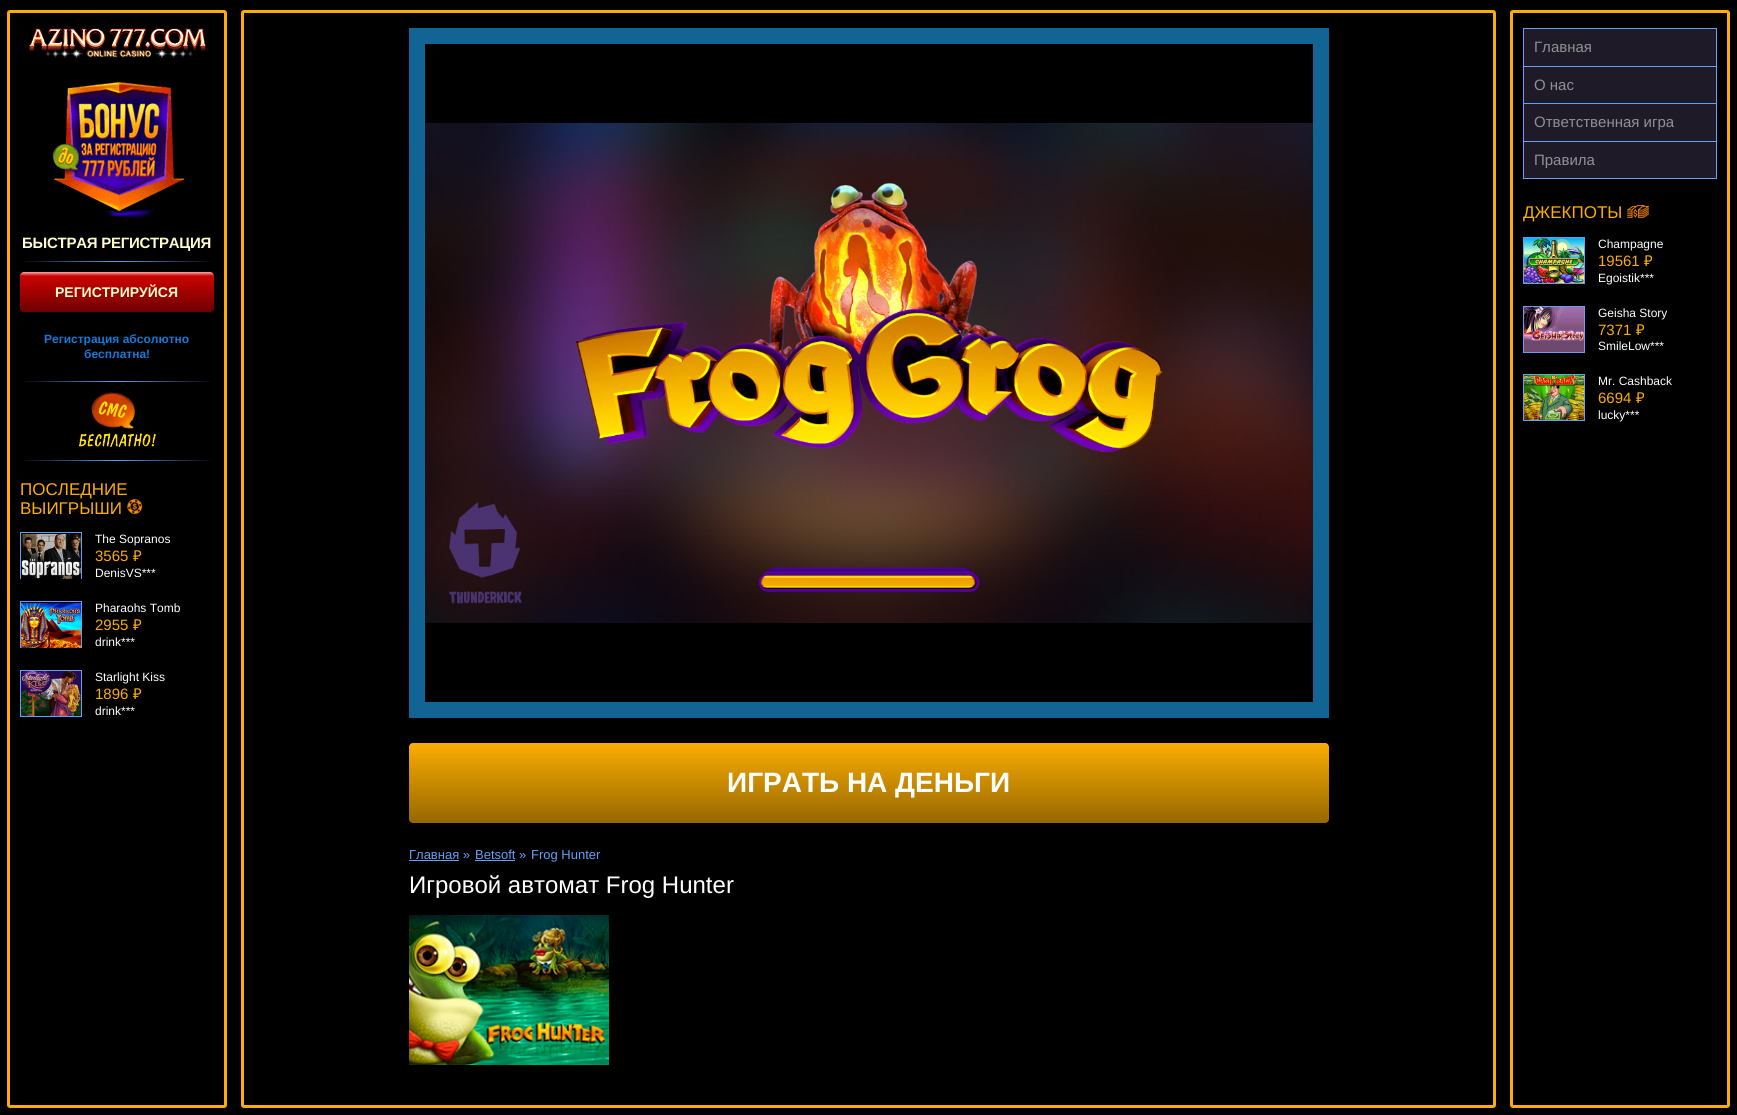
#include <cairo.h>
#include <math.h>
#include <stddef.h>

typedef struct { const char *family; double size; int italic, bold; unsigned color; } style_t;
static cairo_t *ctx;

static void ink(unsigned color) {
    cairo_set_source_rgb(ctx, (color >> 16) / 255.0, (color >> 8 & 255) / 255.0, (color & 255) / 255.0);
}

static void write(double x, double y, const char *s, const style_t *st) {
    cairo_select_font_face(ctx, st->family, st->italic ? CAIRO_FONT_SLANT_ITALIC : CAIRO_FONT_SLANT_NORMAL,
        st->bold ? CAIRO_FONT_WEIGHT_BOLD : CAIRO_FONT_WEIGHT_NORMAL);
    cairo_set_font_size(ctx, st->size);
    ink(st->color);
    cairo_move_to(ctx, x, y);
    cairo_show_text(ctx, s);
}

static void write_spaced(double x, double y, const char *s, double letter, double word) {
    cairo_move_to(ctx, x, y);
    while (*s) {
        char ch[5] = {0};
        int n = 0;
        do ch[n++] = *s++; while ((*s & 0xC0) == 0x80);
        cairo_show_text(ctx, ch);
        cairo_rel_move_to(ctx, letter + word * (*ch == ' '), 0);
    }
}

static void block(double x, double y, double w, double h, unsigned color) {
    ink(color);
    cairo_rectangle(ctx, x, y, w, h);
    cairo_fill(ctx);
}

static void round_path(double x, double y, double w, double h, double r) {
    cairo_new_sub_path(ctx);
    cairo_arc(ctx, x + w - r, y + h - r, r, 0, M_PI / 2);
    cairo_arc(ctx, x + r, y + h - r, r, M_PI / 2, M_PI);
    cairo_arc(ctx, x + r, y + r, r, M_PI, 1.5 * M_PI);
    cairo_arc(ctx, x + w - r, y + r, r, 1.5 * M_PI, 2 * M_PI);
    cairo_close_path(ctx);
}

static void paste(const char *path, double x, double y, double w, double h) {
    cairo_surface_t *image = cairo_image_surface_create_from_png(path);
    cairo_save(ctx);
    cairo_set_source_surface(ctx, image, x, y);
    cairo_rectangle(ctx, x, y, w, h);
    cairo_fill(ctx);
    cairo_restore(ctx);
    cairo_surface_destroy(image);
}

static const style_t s1 = {"Liberation Sans", 14, 0, 1, 0xfffdcd};
static const style_t s2 = {"Liberation Sans", 12, 0, 1, 0x1479d7};
static const style_t s3 = {"Liberation Sans", 17, 0, 0, 0xfbad02};
static const style_t s4 = {"Liberation Sans", 12, 0, 0, 0xffffff};
static const style_t s5 = {"Liberation Sans", 15, 0, 0, 0xfbad02};
static const style_t s6 = {"Noto Sans", 15, 0, 0, 0xfbad02};
static const style_t s7 = {"Liberation Sans", 15, 0, 0, 0x8e9197};
static const style_t s8 = {"Liberation Sans", 28, 0, 1, 0xffffff};
static const style_t s9 = {"Liberation Sans", 13, 0, 0, 0x669ff3};
static const style_t s10 = {"Liberation Sans", 24, 0, 0, 0xffffff};

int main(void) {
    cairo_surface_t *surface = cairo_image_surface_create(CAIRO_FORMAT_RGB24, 1737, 1115);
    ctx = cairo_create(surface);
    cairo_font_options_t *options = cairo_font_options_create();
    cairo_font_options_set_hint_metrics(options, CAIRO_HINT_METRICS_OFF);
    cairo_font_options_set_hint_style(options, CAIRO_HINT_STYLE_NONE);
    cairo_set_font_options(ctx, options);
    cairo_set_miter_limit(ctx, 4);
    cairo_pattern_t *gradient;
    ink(0x000000);
    cairo_paint(ctx);
    round_path(8.5, 11.5, 217, 1095, 1.5);
    ink(0xfbad02);
    cairo_set_line_width(ctx, 3);
    cairo_stroke(ctx);
    paste("pic1.png", 29, 28, 177, 30);
    paste("pic2.png", 52, 82, 133, 138);
    cairo_select_font_face(ctx, "Liberation Sans", CAIRO_FONT_SLANT_NORMAL, CAIRO_FONT_WEIGHT_BOLD);
    cairo_set_font_size(ctx, 15);
    ink(0xfffdcd);
    write_spaced(22, 248, "БЫСТРАЯ РЕГИСТРАЦИЯ", -0.25, 0);
    gradient = cairo_pattern_create_linear(20, 262, 214, 262);
    cairo_pattern_add_color_stop_rgba(gradient, 0, 0, 0, 0, 1);
    cairo_pattern_add_color_stop_rgba(gradient, 0.5, 0.4, 0.624, 0.953, 1);
    cairo_pattern_add_color_stop_rgba(gradient, 1, 0, 0, 0, 1);
    cairo_set_source(ctx, gradient);
    cairo_pattern_destroy(gradient);
    cairo_rectangle(ctx, 20, 261, 194, 1);
    cairo_fill(ctx);
    gradient = cairo_pattern_create_linear(117, 272, 117, 312);
    cairo_pattern_add_color_stop_rgba(gradient, 0, 1, 0.667, 0.667, 1);
    cairo_pattern_add_color_stop_rgba(gradient, 0.1, 0.796, 0.008, 0.008, 1);
    cairo_pattern_add_color_stop_rgba(gradient, 1, 0.431, 0, 0, 1);
    cairo_set_source(ctx, gradient);
    cairo_pattern_destroy(gradient);
    round_path(20, 272, 194, 40, 4);
    cairo_fill(ctx);
    write(55, 297, "РЕГИСТРИРУЙСЯ", &s1);
    write(44, 343, "Регистрация абсолютно", &s2);
    write(84, 358, "бесплатна!", &s2);
    gradient = cairo_pattern_create_linear(20, 382, 214, 382);
    cairo_pattern_add_color_stop_rgba(gradient, 0, 0, 0, 0, 1);
    cairo_pattern_add_color_stop_rgba(gradient, 0.5, 0.4, 0.624, 0.953, 1);
    cairo_pattern_add_color_stop_rgba(gradient, 1, 0, 0, 0, 1);
    cairo_set_source(ctx, gradient);
    cairo_pattern_destroy(gradient);
    cairo_rectangle(ctx, 20, 381, 194, 1);
    cairo_fill(ctx);
    paste("pic3.png", 79, 392, 77, 55);
    gradient = cairo_pattern_create_linear(20, 461, 214, 461);
    cairo_pattern_add_color_stop_rgba(gradient, 0, 0, 0, 0, 1);
    cairo_pattern_add_color_stop_rgba(gradient, 0.5, 0.4, 0.624, 0.953, 1);
    cairo_pattern_add_color_stop_rgba(gradient, 1, 0, 0, 0, 1);
    cairo_set_source(ctx, gradient);
    cairo_pattern_destroy(gradient);
    cairo_rectangle(ctx, 20, 460, 194, 1);
    cairo_fill(ctx);
    write(20, 495, "ПОСЛЕДНИЕ", &s3);
    write(20, 514, "ВЫИГРЫШИ", &s3);
    paste("pic4.png", 127, 498, 16, 16);
    cairo_rectangle(ctx, 20.5, 532.5, 61, 46);
    ink(0x669ff3);
    cairo_set_line_width(ctx, 1);
    cairo_stroke(ctx);
    paste("pic5.png", 21, 534, 60, 45);
    write(95, 543, "The Sopranos", &s4);
    write(95, 561, "3565", &s5);
    write(133, 561, "₽", &s6);
    write(95, 577, "DenisVS***", &s4);
    cairo_rectangle(ctx, 20.5, 601.5, 61, 46);
    ink(0x669ff3);
    cairo_stroke(ctx);
    paste("pic6.png", 21, 603, 60, 45);
    write(95, 612, "Pharaohs Tomb", &s4);
    write(95, 630, "2955", &s5);
    write(133, 630, "₽", &s6);
    write(95, 646, "drink***", &s4);
    cairo_rectangle(ctx, 20.5, 670.5, 61, 46);
    ink(0x669ff3);
    cairo_stroke(ctx);
    paste("pic7.png", 21, 671, 60, 45);
    write(95, 681, "Starlight Kiss", &s4);
    write(95, 699, "1896", &s5);
    write(133, 699, "₽", &s6);
    write(95, 715, "drink***", &s4);
    round_path(1511.5, 11.5, 217, 1095, 1.5);
    ink(0xfbad02);
    cairo_set_line_width(ctx, 3);
    cairo_stroke(ctx);
    cairo_rectangle(ctx, 1523.5, 28.5, 193, 150);
    ink(0x669ff3);
    cairo_set_line_width(ctx, 1);
    cairo_stroke(ctx);
    block(1524, 29, 192, 37, 0x1f1a27);
    write(1534, 52, "Главная", &s7);
    block(1524, 67, 192, 36, 0x1f1a27);
    block(1524, 66, 192, 1, 0x669ff3);
    write(1534, 90, "О нас", &s7);
    block(1524, 104, 192, 37, 0x1f1a27);
    block(1524, 103, 192, 1, 0x669ff3);
    write(1534, 127, "Ответственная игра", &s7);
    block(1524, 142, 192, 36, 0x1f1a27);
    block(1524, 141, 192, 1, 0x669ff3);
    write(1534, 165, "Правила", &s7);
    write(1523, 218, "ДЖЕКПОТЫ", &s3);
    paste("pic8.png", 1627, 205, 22, 13);
    cairo_rectangle(ctx, 1523.5, 237.5, 61, 46);
    ink(0x669ff3);
    cairo_stroke(ctx);
    paste("pic9.png", 1524, 238, 60, 45);
    write(1598, 248, "Champagne", &s4);
    write(1598, 266, "19561", &s5);
    write(1644, 266, "₽", &s6);
    write(1598, 282, "Egoistik***", &s4);
    cairo_rectangle(ctx, 1523.5, 306.5, 61, 46);
    ink(0x669ff3);
    cairo_stroke(ctx);
    paste("pic10.png", 1524, 307, 60, 45);
    write(1598, 317, "Geisha Story", &s4);
    write(1598, 335, "7371", &s5);
    write(1636, 335, "₽", &s6);
    write(1598, 350, "SmileLow***", &s4);
    cairo_rectangle(ctx, 1523.5, 374.5, 61, 46);
    ink(0x669ff3);
    cairo_stroke(ctx);
    paste("pic11.png", 1524, 375, 60, 45);
    write(1598, 385, "Mr. Cashback", &s4);
    write(1598, 403, "6694", &s5);
    write(1636, 403, "₽", &s6);
    write(1598, 419, "lucky***", &s4);
    round_path(242.5, 11.5, 1252, 1095, 1.5);
    ink(0xfbad02);
    cairo_set_line_width(ctx, 3);
    cairo_stroke(ctx);
    block(409, 28, 920, 690, 0x116493);
    paste("pic12.png", 425, 44, 888, 658);
    gradient = cairo_pattern_create_linear(869, 743, 869, 823);
    cairo_pattern_add_color_stop_rgba(gradient, 0, 0.984, 0.678, 0.008, 1);
    cairo_pattern_add_color_stop_rgba(gradient, 1, 0.588, 0.404, 0.004, 1);
    cairo_set_source(ctx, gradient);
    cairo_pattern_destroy(gradient);
    round_path(409, 743, 920, 80, 4);
    cairo_fill(ctx);
    write(727, 792, "ИГРАТЬ НА ДЕНЬГИ", &s8);
    write(409, 859, "Главная »", &s9);
    block(409, 860, 50, 1, 0x669ff3);
    write(475, 859, "Betsoft »", &s9);
    block(475, 860, 40, 1, 0x669ff3);
    write(531, 859, "Frog Hunter", &s9);
    write(409, 893, "Игровой автомат Frog Hunter", &s10);
    paste("pic13.png", 409, 915, 200, 150);
    cairo_surface_write_to_png(surface, "screenshot.png");
    cairo_font_options_destroy(options);
    cairo_destroy(ctx);
    cairo_surface_destroy(surface);
    return 0;
}
